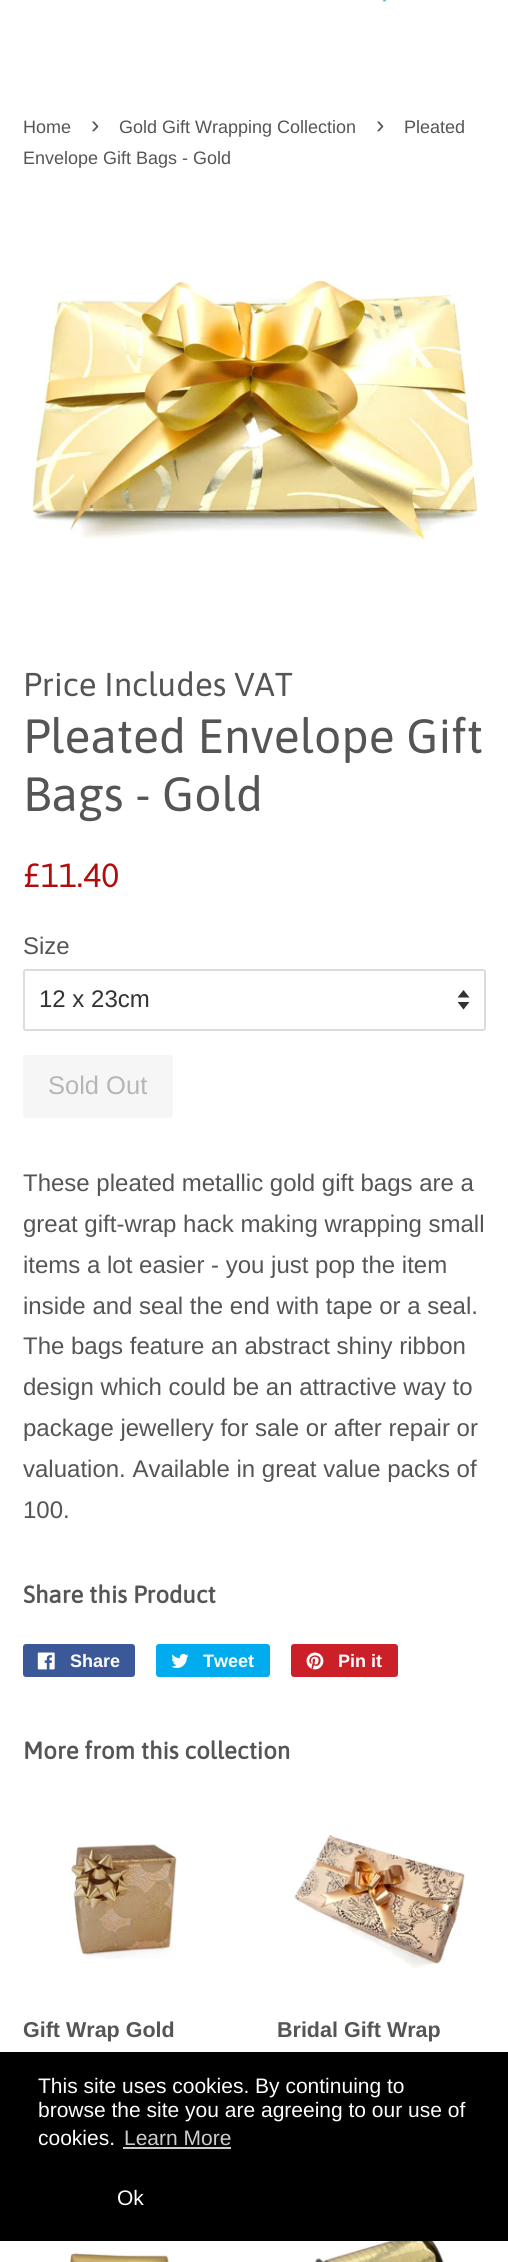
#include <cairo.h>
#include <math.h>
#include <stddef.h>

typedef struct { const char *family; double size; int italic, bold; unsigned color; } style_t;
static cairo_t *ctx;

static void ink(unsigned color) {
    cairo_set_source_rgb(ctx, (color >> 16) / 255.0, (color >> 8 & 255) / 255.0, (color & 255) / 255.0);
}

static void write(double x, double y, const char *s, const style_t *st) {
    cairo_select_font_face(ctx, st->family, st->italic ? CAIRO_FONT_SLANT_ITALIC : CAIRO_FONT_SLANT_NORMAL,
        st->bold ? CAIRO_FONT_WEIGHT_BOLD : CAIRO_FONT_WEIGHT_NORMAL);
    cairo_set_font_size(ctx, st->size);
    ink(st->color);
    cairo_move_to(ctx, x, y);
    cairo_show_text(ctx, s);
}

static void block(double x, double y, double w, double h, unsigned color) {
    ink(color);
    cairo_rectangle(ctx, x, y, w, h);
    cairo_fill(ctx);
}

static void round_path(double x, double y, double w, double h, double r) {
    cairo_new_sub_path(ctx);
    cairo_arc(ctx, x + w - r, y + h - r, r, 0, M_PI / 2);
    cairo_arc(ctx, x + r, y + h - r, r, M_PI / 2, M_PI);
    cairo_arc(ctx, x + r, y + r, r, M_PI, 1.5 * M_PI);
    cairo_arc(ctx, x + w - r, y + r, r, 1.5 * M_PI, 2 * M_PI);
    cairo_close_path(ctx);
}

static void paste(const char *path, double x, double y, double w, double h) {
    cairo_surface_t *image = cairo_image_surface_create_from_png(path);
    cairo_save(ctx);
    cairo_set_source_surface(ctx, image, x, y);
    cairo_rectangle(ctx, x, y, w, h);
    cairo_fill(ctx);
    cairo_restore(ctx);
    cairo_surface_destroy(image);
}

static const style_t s1 = {"Liberation Sans", 18, 0, 0, 0x555555};
static const style_t s2 = {"Liberation Sans", 25, 0, 0, 0x555555};
static const style_t s3 = {"Asap", 33, 0, 0, 0x555555};
static const style_t s4 = {"Asap", 48, 0, 0, 0x555555};
static const style_t s5 = {"Asap", 33.5, 0, 0, 0xb30c0c};
static const style_t s6 = {"Liberation Sans", 24, 0, 0, 0x555555};
static const style_t s7 = {"Liberation Sans", 24, 0, 0, 0x333333};
static const style_t s8 = {"Liberation Sans", 25.5, 0, 0, 0xb6b6b6};
static const style_t s9 = {"Asap", 24, 0, 1, 0x555555};
static const style_t s10 = {"Liberation Sans", 18, 0, 1, 0xffffff};
static const style_t s11 = {"Liberation Sans", 21.5, 0, 1, 0x555555};
static const style_t s12 = {"Liberation Sans", 21, 0, 0, 0xffffff};
static const style_t s13 = {"Liberation Sans", 21, 0, 0, 0xcccccc};

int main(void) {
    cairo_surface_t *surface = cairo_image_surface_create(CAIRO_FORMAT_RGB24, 508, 2262);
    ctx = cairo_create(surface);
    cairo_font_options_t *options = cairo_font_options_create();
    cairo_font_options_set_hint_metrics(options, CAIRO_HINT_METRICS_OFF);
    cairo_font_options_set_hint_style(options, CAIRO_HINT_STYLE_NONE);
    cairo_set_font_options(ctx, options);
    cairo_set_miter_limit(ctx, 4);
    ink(0xffffff);
    cairo_paint(ctx);
    paste("pic1.png", 382, 0, 5, 4);
    write(23, 133, "Home", &s1);
    write(91, 133, "›", &s2);
    write(119, 133, "Gold Gift Wrapping Collection", &s1);
    write(376, 133, "›", &s2);
    write(404, 133, "Pleated", &s1);
    write(23, 164, "Envelope Gift Bags - Gold", &s1);
    paste("pic2.png", 31, 277, 449, 264);
    write(23, 696, "Price Includes VAT", &s3);
    write(23, 753, "Pleated Envelope Gift", &s4);
    write(23, 811, "Bags - Gold", &s4);
    write(23, 887, "£11.40", &s5);
    write(23, 954, "Size", &s6);
    paste("pic3.png", 458, 990, 12, 20);
    round_path(24, 970, 461, 60, 2);
    ink(0xe1dada);
    cairo_stroke(ctx);
    write(39, 1007, "12 x 23cm", &s7);
    ink(0xf6f6f6);
    round_path(23, 1055, 150, 63, 3);
    cairo_fill(ctx);
    write(48, 1094, "Sold Out", &s8);
    write(23, 1191, "These pleated metallic gold gift bags are a", &s6);
    write(23, 1232, "great gift-wrap hack making wrapping small", &s6);
    write(23, 1273, "items a lot easier - you just pop the item", &s6);
    write(23, 1314, "inside and seal the end with tape or a seal.", &s6);
    write(23, 1354, "The bags feature an abstract shiny ribbon", &s6);
    write(23, 1395, "design which could be an attractive way to", &s6);
    write(23, 1436, "package jewellery for sale or after repair or", &s6);
    write(23, 1477, "valuation. Available in great value packs of", &s6);
    write(23, 1518, "100.", &s6);
    write(23, 1603, "Share this Product", &s9);
    ink(0x3b5998);
    round_path(23, 1644, 112, 33, 3);
    cairo_fill(ctx);
    paste("pic4.png", 37, 1652, 18, 18);
    write(70, 1667, "Share", &s10);
    ink(0x00aced);
    round_path(156, 1644, 114, 33, 3);
    cairo_fill(ctx);
    paste("pic5.png", 171, 1653, 18, 15);
    write(203, 1667, "Tweet", &s10);
    ink(0xcb2027);
    round_path(291, 1644, 107, 33, 3);
    cairo_fill(ctx);
    paste("pic6.png", 306, 1652, 18, 18);
    write(338, 1667, "Pin it", &s10);
    write(23, 1759, "More from this collection", &s9);
    paste("pic7.png", 68, 1844, 109, 115);
    write(23, 2037, "Gift Wrap Gold", &s11);
    paste("pic8.png", 293, 1835, 174, 134);
    write(277, 2037, "Bridal Gift Wrap", &s11);
    paste("pic9.png", 70, 2249, 99, 13);
    paste("pic10.png", 315, 2241, 129, 21);
    block(0, 2052, 508, 189, 0x000000);
    write(38, 2093, "This site uses cookies. By continuing to", &s12);
    write(38, 2117, "browse the site you are agreeing to our use of", &s12);
    write(38, 2145, "cookies.", &s12);
    write(124, 2145, "Learn More", &s13);
    block(123, 2147, 108, 2, 0xcccccc);
    write(117, 2205, "Ok", &s12);
    cairo_surface_write_to_png(surface, "screenshot.png");
    cairo_font_options_destroy(options);
    cairo_destroy(ctx);
    cairo_surface_destroy(surface);
    return 0;
}
